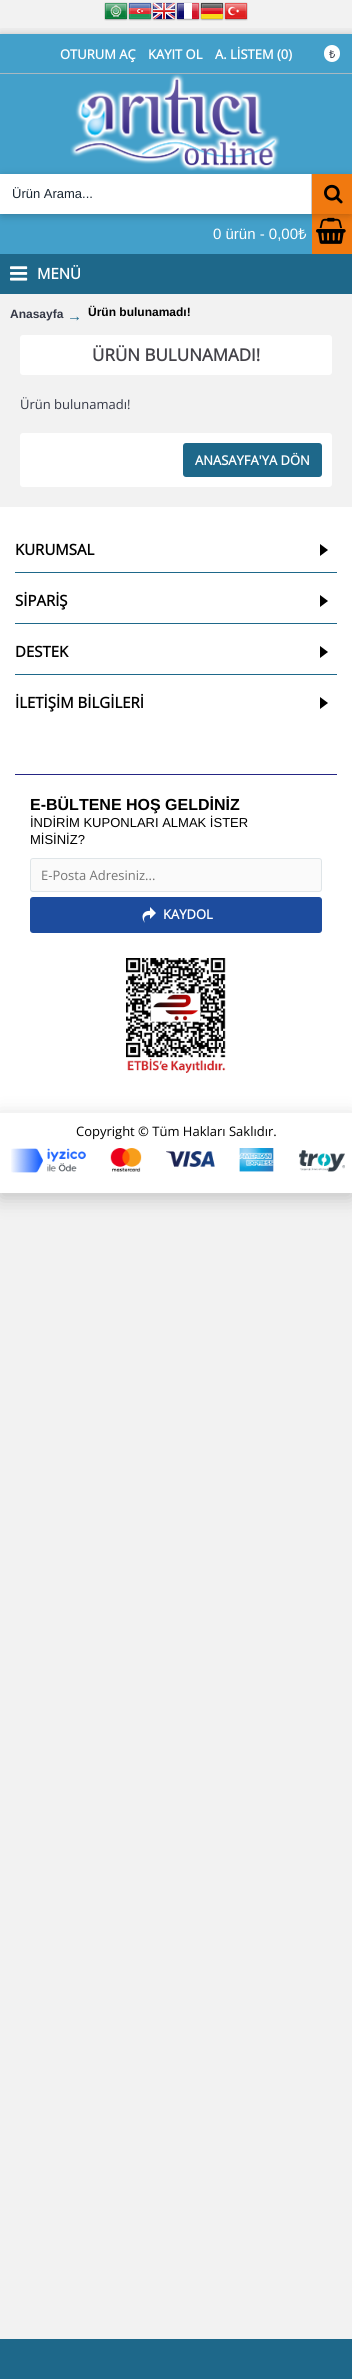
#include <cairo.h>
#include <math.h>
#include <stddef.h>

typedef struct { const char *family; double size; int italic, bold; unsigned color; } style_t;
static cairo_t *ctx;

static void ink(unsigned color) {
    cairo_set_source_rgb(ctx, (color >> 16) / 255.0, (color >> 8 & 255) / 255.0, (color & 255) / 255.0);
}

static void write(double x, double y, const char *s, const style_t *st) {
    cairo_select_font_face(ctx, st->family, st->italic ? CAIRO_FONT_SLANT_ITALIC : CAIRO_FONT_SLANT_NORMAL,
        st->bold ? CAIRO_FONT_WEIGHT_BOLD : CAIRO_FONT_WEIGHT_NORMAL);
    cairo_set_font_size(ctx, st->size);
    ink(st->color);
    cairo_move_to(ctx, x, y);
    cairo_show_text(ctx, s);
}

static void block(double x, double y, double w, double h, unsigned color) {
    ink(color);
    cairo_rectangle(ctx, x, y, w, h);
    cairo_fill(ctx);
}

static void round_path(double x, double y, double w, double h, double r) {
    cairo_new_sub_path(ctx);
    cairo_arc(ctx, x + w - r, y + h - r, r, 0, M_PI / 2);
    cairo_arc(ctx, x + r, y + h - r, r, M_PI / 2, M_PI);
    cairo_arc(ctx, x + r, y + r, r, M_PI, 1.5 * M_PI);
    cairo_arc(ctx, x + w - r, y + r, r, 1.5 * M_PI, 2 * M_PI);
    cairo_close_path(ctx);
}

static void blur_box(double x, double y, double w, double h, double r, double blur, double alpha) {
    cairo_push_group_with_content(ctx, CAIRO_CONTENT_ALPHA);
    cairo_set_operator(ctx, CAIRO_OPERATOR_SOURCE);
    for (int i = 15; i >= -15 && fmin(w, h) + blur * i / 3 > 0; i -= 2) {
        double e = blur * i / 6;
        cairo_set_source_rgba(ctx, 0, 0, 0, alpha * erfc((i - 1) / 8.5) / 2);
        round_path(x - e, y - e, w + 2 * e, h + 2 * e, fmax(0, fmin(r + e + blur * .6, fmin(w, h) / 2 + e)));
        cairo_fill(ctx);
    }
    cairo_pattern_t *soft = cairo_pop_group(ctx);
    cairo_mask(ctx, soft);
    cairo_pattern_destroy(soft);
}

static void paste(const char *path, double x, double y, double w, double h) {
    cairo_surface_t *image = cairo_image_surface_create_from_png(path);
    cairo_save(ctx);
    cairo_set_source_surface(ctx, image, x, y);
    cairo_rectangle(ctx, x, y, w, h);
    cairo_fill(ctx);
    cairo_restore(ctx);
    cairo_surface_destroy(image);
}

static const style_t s1 = {"Open Sans", 13, 0, 1, 0xffffff};
static const style_t s2 = {"Noto Sans", 11, 0, 0, 0x333745};
static const style_t s3 = {"Liberation Sans", 13, 0, 0, 0x1b2733};
static const style_t s4 = {"Liberation Sans", 15, 0, 0, 0xffffff};
static const style_t s5 = {"Noto Sans", 15, 0, 0, 0xffffff};
static const style_t s6 = {"Open Sans", 15, 0, 1, 0xffffff};
static const style_t s7 = {"Liberation Sans", 12, 0, 1, 0x333745};
static const style_t s8 = {"Liberation Sans", 12, 0, 1, 0x000000};
static const style_t s9 = {"Liberation Serif", 15, 0, 0, 0x1e688a};
static const style_t s10 = {"Open Sans", 17, 0, 1, 0x444349};
static const style_t s11 = {"Open Sans", 13, 0, 0, 0x333745};
static const style_t s12 = {"Open Sans", 15, 0, 1, 0x000000};
static const style_t s13 = {"Liberation Sans", 16, 0, 1, 0x000000};
static const style_t s14 = {"Liberation Sans", 13, 0, 0, 0x000000};
static const style_t s15 = {"Open Sans", 13, 0, 0, 0x757575};
static const style_t s16 = {"Open Sans", 13, 0, 0, 0x000000};

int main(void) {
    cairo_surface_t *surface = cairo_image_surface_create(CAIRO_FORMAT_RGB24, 352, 2379);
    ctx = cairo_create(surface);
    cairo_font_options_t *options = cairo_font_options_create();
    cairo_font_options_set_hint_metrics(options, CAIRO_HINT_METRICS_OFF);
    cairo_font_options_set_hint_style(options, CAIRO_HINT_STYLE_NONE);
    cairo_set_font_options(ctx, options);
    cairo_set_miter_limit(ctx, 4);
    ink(0xf2f2f2);
    cairo_paint(ctx);
    paste("pic1.png", 104, 2, 24, 19);
    paste("pic2.png", 128, 2, 24, 19);
    paste("pic3.png", 152, 2, 24, 19);
    paste("pic4.png", 176, 2, 24, 19);
    paste("pic5.png", 200, 2, 24, 19);
    paste("pic6.png", 224, 2, 24, 19);
    block(0, 34, 352, 220, 0x43a0ca);
    cairo_save(ctx);
    cairo_rectangle(ctx, 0, 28, 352, 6);
    cairo_clip(ctx);
    ink(0x000000);
    blur_box(0, 34, 352, 40, 0, 5, 0.2);
    cairo_restore(ctx);
    block(0, 73, 352, 1, 0xa9b8c0);
    write(60, 59, "OTURUM AÇ", &s1);
    write(148, 59, "KAYIT OL", &s1);
    write(215, 59, "A. LİSTEM (0)", &s1);
    round_path(324, 45, 16, 17, 8);
    cairo_fill(ctx);
    write(329, 58, "₺", &s2);
    block(0, 2339, 352, 40, 0x1e688a);
    block(0, 74, 352, 8, 0x43a0ca);
    paste("pic7.png", 70, 74, 210, 97);
    block(312, 214, 40, 40, 0xf1790f);
    paste("pic9.png", 316, 217, 30, 27);
    ink(0x000000);
    blur_box(2, 178, 348, 36, 0, 5, 0.3);
    block(0, 174, 311, 40, 0xffffff);
    write(12, 198, "Ürün Arama...", &s3);
    block(312, 174, 40, 40, 0xf1790f);
    block(311, 174, 1, 40, 0xcccccc);
    paste("pic8.png", 324, 184, 19, 20);
    write(213, 239, "0 ürün - 0,00", &s4);
    write(298, 239, "₺", &s5);
    block(0, 254, 352, 40, 0x1e688a);
    paste("pic10.png", 10, 266, 18, 15);
    write(37, 279, "MENÜ", &s6);
    write(10, 318, "Anasayfa", &s7);
    write(88, 316, "Ürün bulunamadı!", &s8);
    write(67, 321, "→", &s9);
    ink(0xffffff);
    round_path(20, 335, 312, 40, 3);
    cairo_fill(ctx);
    write(92, 361, "ÜRÜN BULUNAMADI!", &s10);
    write(20, 409, "Ürün bulunamadı!", &s11);
    ink(0xffffff);
    round_path(20, 433, 312, 54, 3);
    cairo_fill(ctx);
    ink(0x1e688a);
    round_path(183, 443, 139, 34, 3);
    cairo_fill(ctx);
    write(195, 465, "ANASAYFA'YA DÖN", &s1);
    block(0, 507, 352, 686, 0xffffff);
    block(15, 572, 322, 1, 0x1e688a);
    write(15, 555, "KURUMSAL", &s12);
    cairo_new_path(ctx);
    cairo_move_to(ctx, 320, 544);
    cairo_line_to(ctx, 320, 556);
    cairo_line_to(ctx, 328, 550);
    cairo_close_path(ctx);
    cairo_fill(ctx);
    block(15, 623, 322, 1, 0x1e688a);
    write(15, 606, "SİPARİŞ", &s12);
    cairo_new_path(ctx);
    cairo_move_to(ctx, 320, 595);
    cairo_line_to(ctx, 320, 607);
    cairo_line_to(ctx, 328, 601);
    cairo_close_path(ctx);
    cairo_fill(ctx);
    block(15, 674, 322, 1, 0x1e688a);
    write(15, 657, "DESTEK", &s12);
    cairo_new_path(ctx);
    cairo_move_to(ctx, 320, 646);
    cairo_line_to(ctx, 320, 658);
    cairo_line_to(ctx, 328, 652);
    cairo_close_path(ctx);
    cairo_fill(ctx);
    write(15, 708, "İLETİŞİM BİLGİLERİ", &s12);
    cairo_new_path(ctx);
    cairo_move_to(ctx, 320, 697);
    cairo_line_to(ctx, 320, 709);
    cairo_line_to(ctx, 328, 703);
    cairo_close_path(ctx);
    cairo_fill(ctx);
    block(15, 774, 322, 1, 0x252584);
    write(30, 810, "E-BÜLTENE HOŞ GELDİNİZ", &s13);
    write(30, 827, "İNDİRİM KUPONLARI ALMAK İSTER", &s14);
    write(30, 844, "MİSİNİZ?", &s14);
    ink(0xfafafa);
    round_path(30.5, 858.5, 291, 33, 2.5);
    cairo_fill_preserve(ctx);
    ink(0xdfe5e8);
    cairo_set_line_width(ctx, 1);
    cairo_stroke(ctx);
    write(41, 880, "E-Posta Adresiniz...", &s15);
    ink(0x1d4c9e);
    round_path(30, 897, 292, 36, 3);
    cairo_fill(ctx);
    paste("pic11.png", 142, 907, 14, 16);
    write(163, 919, "KAYDOL", &s1);
    paste("pic12.png", 126, 958, 100, 115);
    cairo_save(ctx);
    cairo_set_fill_rule(ctx, CAIRO_FILL_RULE_EVEN_ODD);
    cairo_new_path(ctx);
    cairo_move_to(ctx, 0, 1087);
    cairo_line_to(ctx, 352, 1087);
    cairo_line_to(ctx, 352, 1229);
    cairo_line_to(ctx, 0, 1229);
    cairo_close_path(ctx);
    cairo_move_to(ctx, 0, 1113);
    cairo_line_to(ctx, 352, 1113);
    cairo_line_to(ctx, 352, 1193);
    cairo_line_to(ctx, 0, 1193);
    cairo_close_path(ctx);
    cairo_clip(ctx);
    ink(0x000000);
    blur_box(0, 1118, 352, 80, 0, 10, 0.2);
    cairo_restore(ctx);
    write(76, 1136, "Copyright © Tüm Hakları Saklıdır.", &s16);
    paste("pic13.png", 11, 1148, 334, 25);
    cairo_surface_write_to_png(surface, "screenshot.png");
    cairo_font_options_destroy(options);
    cairo_destroy(ctx);
    cairo_surface_destroy(surface);
    return 0;
}
